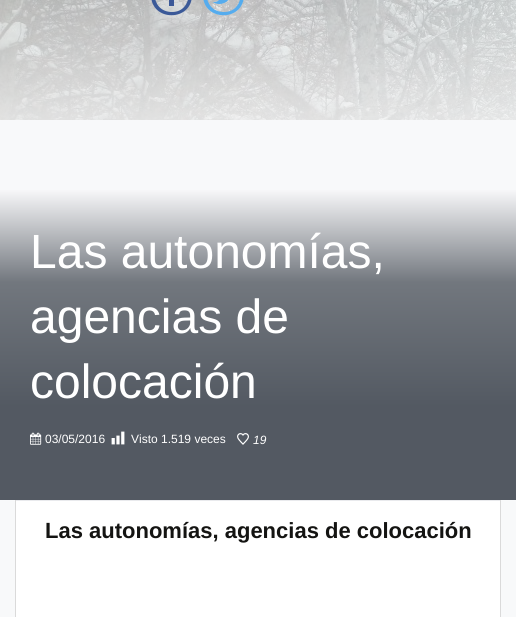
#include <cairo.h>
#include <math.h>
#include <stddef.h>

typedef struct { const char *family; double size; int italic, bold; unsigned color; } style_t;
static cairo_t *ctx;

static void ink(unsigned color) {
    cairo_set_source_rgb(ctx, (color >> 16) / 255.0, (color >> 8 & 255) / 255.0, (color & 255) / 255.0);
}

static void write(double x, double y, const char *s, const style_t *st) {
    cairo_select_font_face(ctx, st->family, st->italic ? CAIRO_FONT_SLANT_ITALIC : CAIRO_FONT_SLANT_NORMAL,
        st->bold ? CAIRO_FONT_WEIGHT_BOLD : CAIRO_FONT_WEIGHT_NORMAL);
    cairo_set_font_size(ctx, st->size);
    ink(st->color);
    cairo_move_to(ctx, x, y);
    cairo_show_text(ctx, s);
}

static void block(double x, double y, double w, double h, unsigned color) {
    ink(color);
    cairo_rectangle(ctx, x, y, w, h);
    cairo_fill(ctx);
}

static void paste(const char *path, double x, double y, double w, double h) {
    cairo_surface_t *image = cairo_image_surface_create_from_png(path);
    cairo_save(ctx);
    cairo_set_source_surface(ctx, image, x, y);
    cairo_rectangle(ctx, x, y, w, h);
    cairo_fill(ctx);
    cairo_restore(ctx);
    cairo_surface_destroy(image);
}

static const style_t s1 = {"Liberation Sans", 48, 0, 0, 0xffffff};
static const style_t s2 = {"Liberation Sans", 12, 0, 0, 0xffffff};
static const style_t s3 = {"Liberation Sans", 12, 1, 0, 0xffffff};
static const style_t s4 = {"Liberation Sans", 22, 0, 1, 0x141412};

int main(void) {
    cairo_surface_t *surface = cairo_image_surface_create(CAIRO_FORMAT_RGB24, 516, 617);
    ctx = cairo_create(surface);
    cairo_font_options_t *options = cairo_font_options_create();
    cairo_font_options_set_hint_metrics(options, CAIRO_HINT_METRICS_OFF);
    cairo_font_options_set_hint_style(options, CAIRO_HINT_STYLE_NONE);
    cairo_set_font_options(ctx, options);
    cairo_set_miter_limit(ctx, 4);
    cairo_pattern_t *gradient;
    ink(0xf8f9fa);
    cairo_paint(ctx);
    paste("pic1.png", 0, 0, 516, 120);
    ink(0x3b5998);
    cairo_new_path(ctx);
    cairo_move_to(ctx, 172, -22);
    cairo_curve_to(ctx, 194, -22, 194, 12, 172, 12);
    cairo_curve_to(ctx, 149, 12, 149, -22, 172, -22);
    cairo_close_path(ctx);
    cairo_move_to(ctx, 192, -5);
    cairo_curve_to(ctx, 192, -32, 151, -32, 151, -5);
    cairo_curve_to(ctx, 151, 22, 192, 22, 192, -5);
    cairo_close_path(ctx);
    cairo_fill(ctx);
    block(169, 0, 5, 6, 0x3b5998);
    ink(0x55acee);
    cairo_new_path(ctx);
    cairo_move_to(ctx, 224, -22);
    cairo_curve_to(ctx, 246, -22, 246, 12, 224, 12);
    cairo_curve_to(ctx, 201, 12, 201, -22, 224, -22);
    cairo_close_path(ctx);
    cairo_move_to(ctx, 244, -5);
    cairo_curve_to(ctx, 244, -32, 203, -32, 203, -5);
    cairo_curve_to(ctx, 203, 22, 244, 22, 244, -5);
    cairo_close_path(ctx);
    cairo_fill(ctx);
    paste("pic2.png", 212, 0, 17, 4);
    gradient = cairo_pattern_create_linear(258, 189, 258, 500);
    cairo_pattern_add_color_stop_rgba(gradient, 0, 0.973, 0.973, 0.98, 1);
    cairo_pattern_add_color_stop_rgba(gradient, 0.3, 0.447, 0.467, 0.494, 1);
    cairo_pattern_add_color_stop_rgba(gradient, 0.7, 0.325, 0.349, 0.384, 1);
    cairo_pattern_add_color_stop_rgba(gradient, 1, 0.325, 0.349, 0.384, 1);
    cairo_set_source(ctx, gradient);
    cairo_pattern_destroy(gradient);
    cairo_rectangle(ctx, 0, 190, 516, 310);
    cairo_fill(ctx);
    write(30, 268, "Las autonomías,", &s1);
    write(30, 333, "agencias de", &s1);
    write(30, 398, "colocación", &s1);
    paste("pic3.png", 30, 432, 12, 13);
    write(45, 443, "03/05/2016", &s2);
    paste("pic4.png", 111, 431, 14, 14);
    write(131, 443, "Visto 1.519 veces", &s2);
    paste("pic5.png", 237, 433, 12, 12);
    write(253, 444, "19", &s3);
    block(16, 501, 484, 116, 0xffffff);
    block(15, 500, 486, 1, 0xe9eaed);
    block(500, 500, 1, 117, 0xdadada);
    block(15, 500, 1, 117, 0xdadada);
    write(45, 538, "Las autonomías, agencias de colocación", &s4);
    cairo_surface_write_to_png(surface, "screenshot.png");
    cairo_font_options_destroy(options);
    cairo_destroy(ctx);
    cairo_surface_destroy(surface);
    return 0;
}
